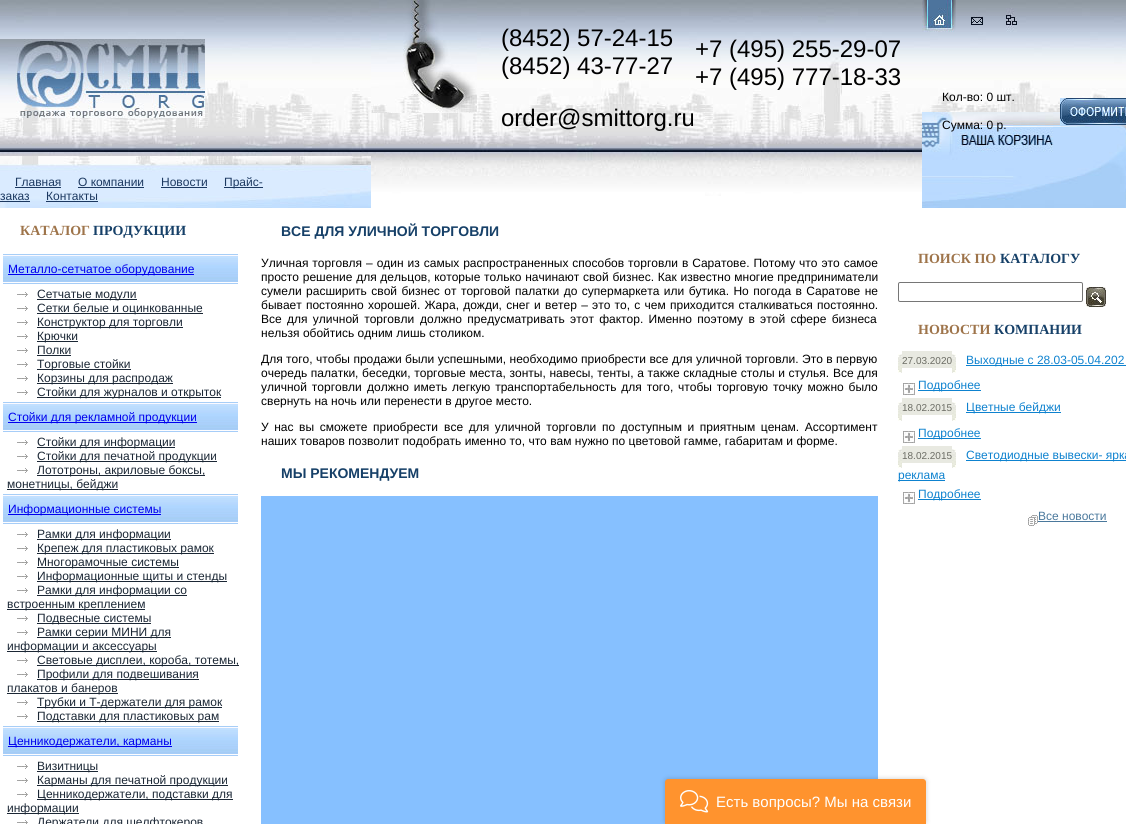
#include <cairo.h>
#include <math.h>
#include <stddef.h>

typedef struct { const char *family; double size; int italic, bold; unsigned color; } style_t;
static cairo_t *ctx;

static void ink(unsigned color) {
    cairo_set_source_rgb(ctx, (color >> 16) / 255.0, (color >> 8 & 255) / 255.0, (color & 255) / 255.0);
}

static void write(double x, double y, const char *s, const style_t *st) {
    cairo_select_font_face(ctx, st->family, st->italic ? CAIRO_FONT_SLANT_ITALIC : CAIRO_FONT_SLANT_NORMAL,
        st->bold ? CAIRO_FONT_WEIGHT_BOLD : CAIRO_FONT_WEIGHT_NORMAL);
    cairo_set_font_size(ctx, st->size);
    ink(st->color);
    cairo_move_to(ctx, x, y);
    cairo_show_text(ctx, s);
}

static void write_spaced(double x, double y, const char *s, double letter, double word) {
    cairo_move_to(ctx, x, y);
    while (*s) {
        char ch[5] = {0};
        int n = 0;
        do ch[n++] = *s++; while ((*s & 0xC0) == 0x80);
        cairo_show_text(ctx, ch);
        cairo_rel_move_to(ctx, letter + word * (*ch == ' '), 0);
    }
}

static void block(double x, double y, double w, double h, unsigned color) {
    ink(color);
    cairo_rectangle(ctx, x, y, w, h);
    cairo_fill(ctx);
}

static void round_path(double x, double y, double w, double h, double r) {
    cairo_new_sub_path(ctx);
    cairo_arc(ctx, x + w - r, y + h - r, r, 0, M_PI / 2);
    cairo_arc(ctx, x + r, y + h - r, r, M_PI / 2, M_PI);
    cairo_arc(ctx, x + r, y + r, r, M_PI, 1.5 * M_PI);
    cairo_arc(ctx, x + w - r, y + r, r, 1.5 * M_PI, 2 * M_PI);
    cairo_close_path(ctx);
}

static void blur_box(double x, double y, double w, double h, double r, double blur, double alpha) {
    cairo_push_group_with_content(ctx, CAIRO_CONTENT_ALPHA);
    cairo_set_operator(ctx, CAIRO_OPERATOR_SOURCE);
    for (int i = 15; i >= -15 && fmin(w, h) + blur * i / 3 > 0; i -= 2) {
        double e = blur * i / 6;
        cairo_set_source_rgba(ctx, 0, 0, 0, alpha * erfc((i - 1) / 8.5) / 2);
        round_path(x - e, y - e, w + 2 * e, h + 2 * e, fmax(0, fmin(r + e + blur * .6, fmin(w, h) / 2 + e)));
        cairo_fill(ctx);
    }
    cairo_pattern_t *soft = cairo_pop_group(ctx);
    cairo_mask(ctx, soft);
    cairo_pattern_destroy(soft);
}

static void paste(const char *path, double x, double y, double w, double h) {
    cairo_surface_t *image = cairo_image_surface_create_from_png(path);
    cairo_save(ctx);
    cairo_set_source_surface(ctx, image, x, y);
    cairo_rectangle(ctx, x, y, w, h);
    cairo_fill(ctx);
    cairo_restore(ctx);
    cairo_surface_destroy(image);
}

static const style_t s1 = {"Liberation Sans", 24, 0, 0, 0x000000};
static const style_t s2 = {"Liberation Sans", 12, 0, 0, 0x000000};
static const style_t s3 = {"Liberation Sans", 12, 0, 0, 0x1c3961};
static const style_t s4 = {"Liberation Serif", 14, 0, 1, 0x9e744a};
static const style_t s5 = {"Liberation Serif", 14, 0, 1, 0x164068};
static const style_t s6 = {"Liberation Sans", 12, 0, 0, 0x0000ee};
static const style_t s7 = {"Liberation Sans", 12, 0, 0, 0x1b2735};
static const style_t s8 = {"Liberation Sans", 14, 0, 1, 0x164068};
static const style_t s9 = {"Liberation Sans", 10, 0, 0, 0x6b6c64};
static const style_t s10 = {"Liberation Sans", 12, 0, 0, 0x0e82cf};
static const style_t s11 = {"Liberation Sans", 12, 0, 0, 0x4a789c};
static const style_t s12 = {"Liberation Sans", 15, 0, 0, 0xffffff};

int main(void) {
    cairo_surface_t *surface = cairo_image_surface_create(CAIRO_FORMAT_RGB24, 1126, 824);
    ctx = cairo_create(surface);
    cairo_font_options_t *options = cairo_font_options_create();
    cairo_font_options_set_hint_metrics(options, CAIRO_HINT_METRICS_OFF);
    cairo_font_options_set_hint_style(options, CAIRO_HINT_STYLE_NONE);
    cairo_set_font_options(ctx, options);
    cairo_set_miter_limit(ctx, 4);
    ink(0xffffff);
    cairo_paint(ctx);
    paste("pic1.png", 0, 0, 1126, 196);
    paste("pic2.png", 0, 39, 205, 79);
    paste("pic3.png", 371, 0, 106, 113);
    write(501, 46, "(8452) 57-24-15", &s1);
    write(501, 74, "(8452) 43-77-27", &s1);
    write(501, 126, "order@smittorg.ru", &s1);
    write(695, 57, "+7 (495) 255-29-07", &s1);
    write(695, 85, "+7 (495) 777-18-33", &s1);
    paste("pic4.png", 922, 112, 204, 96);
    paste("pic5.png", 922, 0, 34, 32);
    paste("pic6.png", 971, 16, 12, 9);
    paste("pic7.png", 1006, 8, 11, 24);
    write(942, 101, "Кол-во: 0 шт.", &s2);
    write(942, 129, "Сумма: 0 р.", &s2);
    paste("pic8.png", 1060, 98, 66, 27);
    paste("pic9.png", 0, 156, 371, 52);
    write(15, 186, "Главная", &s3);
    block(15, 187, 46, 1, 0x1c3961);
    write(78, 186, "О компании", &s3);
    block(78, 187, 66, 1, 0x1c3961);
    write(161, 186, "Новости", &s3);
    block(161, 187, 46, 1, 0x1c3961);
    block(224, 187, 39, 1, 0x1c3961);
    write(224, 186, "Прайс-", &s3);
    write(0, 200, "заказ", &s3);
    block(0, 201, 30, 1, 0x1c3961);
    write(46, 200, "Контакты", &s3);
    block(46, 201, 52, 1, 0x1c3961);
    write(20, 235, "КАТАЛОГ", &s4);
    write(93, 235, "ПРОДУКЦИИ", &s5);
    paste("pic10.png", 3, 254, 235, 30);
    block(8, 274, 186, 1, 0x0000ee);
    write(8, 273, "Металло-сетчатое оборудование", &s6);
    paste("pic11.png", 17, 292, 11, 5);
    block(37, 299, 100, 1, 0x1b2735);
    write(37, 298, "Сетчатые модули", &s7);
    paste("pic11.png", 17, 306, 11, 5);
    block(37, 313, 166, 1, 0x1b2735);
    write(37, 312, "Сетки белые и оцинкованные", &s7);
    paste("pic11.png", 17, 320, 11, 5);
    block(37, 327, 146, 1, 0x1b2735);
    write(37, 326, "Конструктор для торговли", &s7);
    paste("pic11.png", 17, 334, 11, 5);
    block(37, 341, 41, 1, 0x1b2735);
    write(37, 340, "Крючки", &s7);
    paste("pic11.png", 17, 348, 11, 5);
    write(37, 354, "Полки", &s7);
    block(37, 355, 34, 1, 0x1b2735);
    paste("pic11.png", 17, 362, 11, 5);
    block(37, 369, 94, 1, 0x1b2735);
    write(37, 368, "Торговые стойки", &s7);
    paste("pic11.png", 17, 376, 11, 5);
    block(37, 383, 136, 1, 0x1b2735);
    write(37, 382, "Корзины для распродаж", &s7);
    paste("pic11.png", 17, 390, 11, 5);
    block(37, 397, 184, 1, 0x1b2735);
    write(37, 396, "Стойки для журналов и открыток", &s7);
    paste("pic10.png", 3, 402, 235, 30);
    block(8, 422, 189, 1, 0x0000ee);
    write(8, 421, "Стойки для рекламной продукции", &s6);
    paste("pic11.png", 17, 440, 11, 5);
    block(37, 447, 138, 1, 0x1b2735);
    write(37, 446, "Стойки для информации", &s7);
    paste("pic11.png", 17, 454, 11, 5);
    block(37, 461, 180, 1, 0x1b2735);
    write(37, 460, "Стойки для печатной продукции", &s7);
    paste("pic11.png", 17, 468, 11, 5);
    block(37, 475, 168, 1, 0x1b2735);
    write(37, 474, "Лототроны, акриловые боксы,", &s7);
    block(7, 489, 111, 1, 0x1b2735);
    write(7, 488, "монетницы, бейджи", &s7);
    paste("pic10.png", 3, 494, 235, 30);
    block(8, 514, 153, 1, 0x0000ee);
    write(8, 513, "Информационные системы", &s6);
    paste("pic11.png", 17, 532, 11, 5);
    block(37, 539, 134, 1, 0x1b2735);
    write(37, 538, "Рамки для информации", &s7);
    paste("pic11.png", 17, 546, 11, 5);
    block(37, 553, 177, 1, 0x1b2735);
    write(37, 552, "Крепеж для пластиковых рамок", &s7);
    paste("pic11.png", 17, 560, 11, 5);
    block(37, 567, 142, 1, 0x1b2735);
    write(37, 566, "Многорамочные системы", &s7);
    paste("pic11.png", 17, 574, 11, 5);
    block(37, 581, 190, 1, 0x1b2735);
    write(37, 580, "Информационные щиты и стенды", &s7);
    paste("pic11.png", 17, 588, 11, 5);
    block(37, 595, 150, 1, 0x1b2735);
    write(37, 594, "Рамки для информации со", &s7);
    block(7, 609, 138, 1, 0x1b2735);
    write(7, 608, "встроенным креплением", &s7);
    paste("pic11.png", 17, 616, 11, 5);
    block(37, 623, 114, 1, 0x1b2735);
    write(37, 622, "Подвесные системы", &s7);
    paste("pic11.png", 17, 630, 11, 5);
    block(37, 637, 134, 1, 0x1b2735);
    write(37, 636, "Рамки серии МИНИ для", &s7);
    block(7, 651, 150, 1, 0x1b2735);
    write(7, 650, "информации и аксессуары", &s7);
    paste("pic11.png", 17, 658, 11, 5);
    block(37, 665, 202, 1, 0x1b2735);
    write(37, 664, "Световые дисплеи, короба, тотемы,", &s7);
    paste("pic11.png", 17, 672, 11, 5);
    block(37, 679, 162, 1, 0x1b2735);
    write(37, 678, "Профили для подвешивания", &s7);
    block(7, 693, 111, 1, 0x1b2735);
    write(7, 692, "плакатов и банеров", &s7);
    paste("pic11.png", 17, 700, 11, 5);
    block(37, 707, 185, 1, 0x1b2735);
    write(37, 706, "Трубки и Т-держатели для рамок", &s7);
    paste("pic11.png", 17, 714, 11, 5);
    block(37, 721, 182, 1, 0x1b2735);
    write(37, 720, "Подставки для пластиковых рам", &s7);
    paste("pic10.png", 3, 726, 235, 30);
    block(8, 746, 164, 1, 0x0000ee);
    write(8, 745, "Ценникодержатели, карманы", &s6);
    paste("pic11.png", 17, 764, 11, 5);
    block(37, 771, 61, 1, 0x1b2735);
    write(37, 770, "Визитницы", &s7);
    paste("pic11.png", 17, 778, 11, 5);
    block(37, 785, 191, 1, 0x1b2735);
    write(37, 784, "Карманы для печатной продукции", &s7);
    paste("pic11.png", 17, 792, 11, 5);
    block(37, 799, 196, 1, 0x1b2735);
    write(37, 798, "Ценникодержатели, подставки для", &s7);
    block(7, 813, 72, 1, 0x1b2735);
    write(7, 812, "информации", &s7);
    paste("pic12.png", 17, 820, 11, 4);
    write(37, 826, "Держатели для шелфтокеров", &s7);
    write(281, 236, "ВСЕ ДЛЯ УЛИЧНОЙ ТОРГОВЛИ", &s8);
    cairo_select_font_face(ctx, "Liberation Sans", CAIRO_FONT_SLANT_NORMAL, CAIRO_FONT_WEIGHT_NORMAL);
    cairo_set_font_size(ctx, 12);
    ink(0x000000);
    write_spaced(261, 267, "Уличная торговля – один из самых распространенных способов торговли в Саратове. Потому что это самое", 0, 0.6);
    write_spaced(261, 281, "просто решение для дельцов, которые только начинают свой бизнес. Как известно многие предприниматели", 0, 0.4);
    write_spaced(261, 295, "сумели расширить свой бизнес от торговой палатки до супермаркета или бутика. Но погода в Саратове не", 0, 1.1);
    write_spaced(261, 309, "бывает постоянно хорошей. Жара, дожди, снег и ветер – это то, с чем приходится сталкиваться постоянно.", 0, 0.9);
    write_spaced(261, 323, "Все для уличной торговли", 0, 2);
    write_spaced(420, 323, "должно предусматривать этот фактор. Именно поэтому в этой сфере бизнеса", 0, 2);
    write(261, 337, "нельзя обойтись одним лишь столиком.", &s2);
    write_spaced(261, 363, "Для того, чтобы продажи были успешными, необходимо приобрести все для уличной торговли. Это в первую", 0, 0.1);
    write_spaced(261, 377, "очередь палатки, беседки, торговые места, зонты, навесы, тенты, а также складные столы и стулья.", 0, 0.3);
    write_spaced(833, 377, "Все для", 0, 0.3);
    write_spaced(261, 391, "уличной торговли", 0, 1.5);
    write_spaced(367, 391, "должно иметь легкую транспортабельность для того, чтобы торговую точку можно было", 0, 1.5);
    write(261, 405, "свернуть на ночь или перенести в другое место.", &s2);
    write_spaced(261, 431, "У нас вы сможете приобрести", 0, 2.25);
    write_spaced(444, 431, "все для уличной торговли", 0, 2.25);
    write_spaced(602, 431, "по доступным и приятным ценам. Ассортимент", 0, 2.25);
    write(261, 445, "наших товаров позволит подобрать именно то, что вам нужно по цветовой гамме, габаритам и форме.", &s2);
    write(281, 478, "МЫ РЕКОМЕНДУЕМ", &s8);
    block(261, 496, 617, 328, 0x86c0ff);
    write(918, 263, "ПОИСК ПО", &s4);
    write(1000, 263, "КАТАЛОГУ", &s5);
    round_path(898.5, 282.5, 184, 19, 1.5);
    ink(0x767676);
    cairo_set_line_width(ctx, 1);
    cairo_stroke(ctx);
    paste("pic13.png", 1086, 287, 20, 20);
    write(918, 334, "НОВОСТИ", &s4);
    write(994, 334, "КОМПАНИИ", &s5);
    paste("pic14.png", 898, 354, 4, 19);
    block(902, 351, 50, 17, 0xe8e9e1);
    write(902, 364, "27.03.2020", &s9);
    paste("pic15.png", 952, 354, 4, 19);
    block(966, 365, 160, 1, 0x0e82cf);
    write(966, 364, "Выходные с 28.03-05.04.202", &s10);
    paste("pic16.png", 903, 383, 12, 12);
    block(918, 390, 63, 1, 0x0e82cf);
    write(918, 389, "Подробнее", &s10);
    paste("pic14.png", 898, 402, 4, 19);
    block(902, 398, 50, 17, 0xe8e9e1);
    write(902, 411, "18.02.2015", &s9);
    paste("pic15.png", 952, 402, 4, 19);
    block(966, 412, 95, 1, 0x0e82cf);
    write(966, 411, "Цветные бейджи", &s10);
    paste("pic16.png", 903, 431, 12, 12);
    block(918, 438, 63, 1, 0x0e82cf);
    write(918, 437, "Подробнее", &s10);
    paste("pic14.png", 898, 449, 4, 19);
    block(902, 446, 50, 17, 0xe8e9e1);
    write(902, 459, "18.02.2015", &s9);
    paste("pic15.png", 952, 449, 4, 19);
    block(966, 460, 160, 1, 0x0e82cf);
    write(966, 459, "Светодиодные вывески- ярка", &s10);
    block(898, 480, 47, 1, 0x0e82cf);
    write(898, 479, "реклама", &s10);
    paste("pic16.png", 903, 492, 12, 12);
    block(918, 499, 63, 1, 0x0e82cf);
    write(918, 498, "Подробнее", &s10);
    paste("pic17.png", 1028, 515, 10, 11);
    write(1038, 520, "Все новости", &s11);
    block(1038, 521, 69, 1, 0x4a789c);
    ink(0x000000);
    blur_box(665, 779, 261, 45, 3, 2.5, 0.2);
    ink(0xff932e);
    cairo_new_path(ctx);
    cairo_move_to(ctx, 668, 779);
    cairo_line_to(ctx, 923, 779);
    cairo_curve_to(ctx, 924.5, 779, 926, 780.5, 926, 782);
    cairo_line_to(ctx, 926, 824);
    cairo_line_to(ctx, 665, 824);
    cairo_line_to(ctx, 665, 782);
    cairo_curve_to(ctx, 665, 780.5, 666.5, 779, 668, 779);
    cairo_close_path(ctx);
    cairo_fill(ctx);
    paste("pic18.png", 680, 790, 29, 23);
    write(716, 807, "Есть вопросы? Мы на связи", &s12);
    cairo_surface_write_to_png(surface, "screenshot.png");
    cairo_font_options_destroy(options);
    cairo_destroy(ctx);
    cairo_surface_destroy(surface);
    return 0;
}
